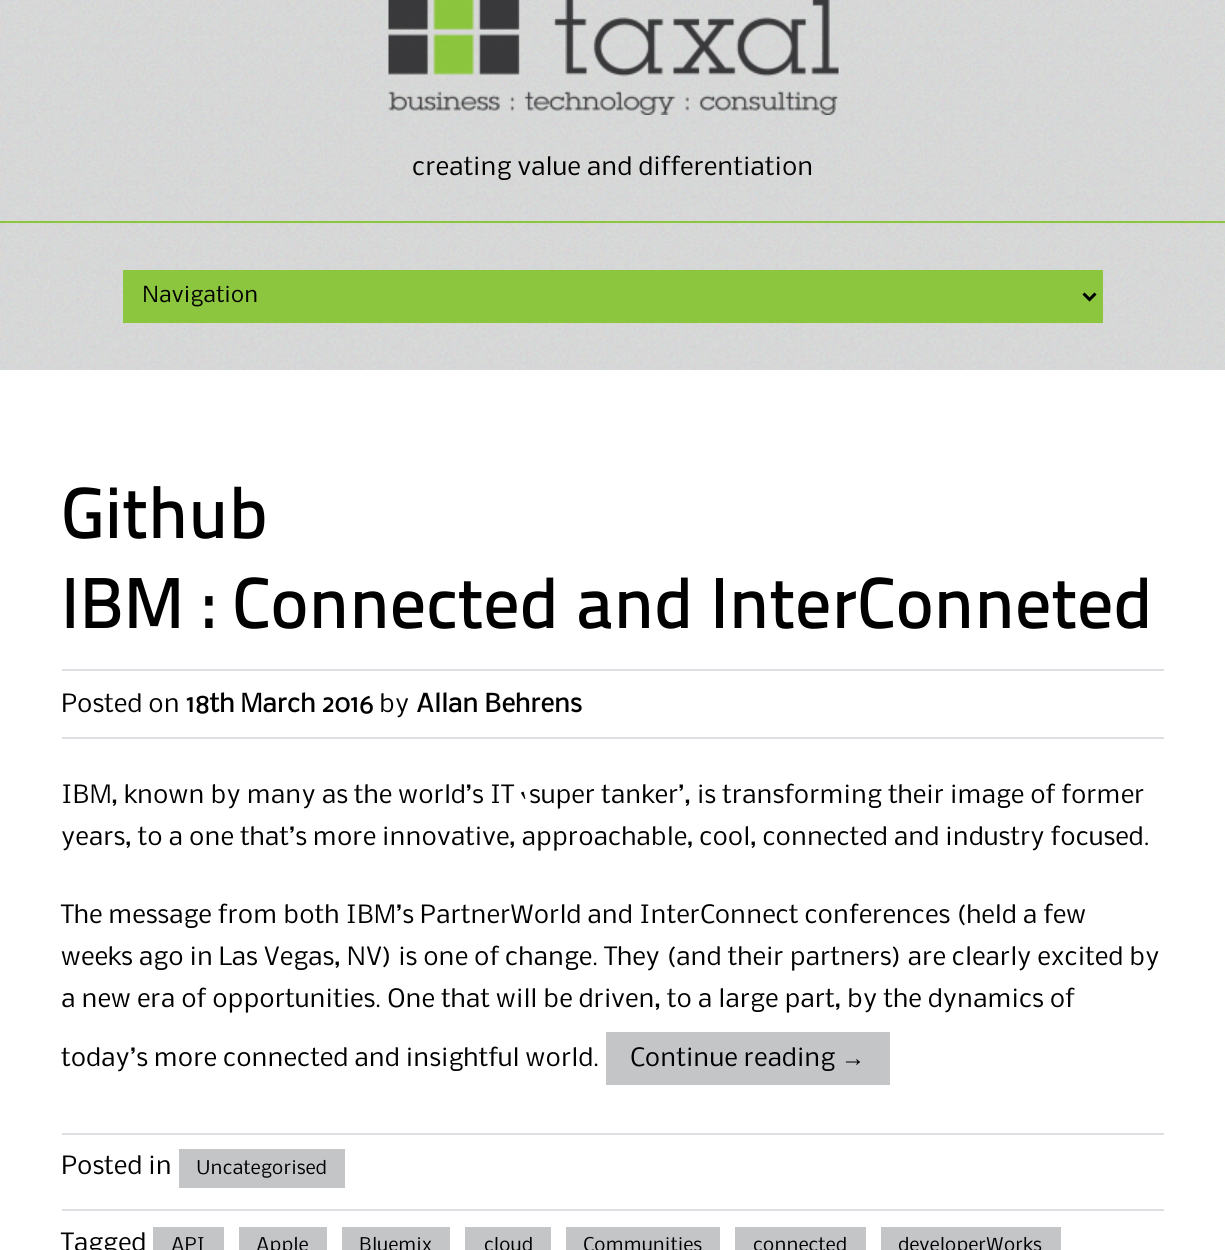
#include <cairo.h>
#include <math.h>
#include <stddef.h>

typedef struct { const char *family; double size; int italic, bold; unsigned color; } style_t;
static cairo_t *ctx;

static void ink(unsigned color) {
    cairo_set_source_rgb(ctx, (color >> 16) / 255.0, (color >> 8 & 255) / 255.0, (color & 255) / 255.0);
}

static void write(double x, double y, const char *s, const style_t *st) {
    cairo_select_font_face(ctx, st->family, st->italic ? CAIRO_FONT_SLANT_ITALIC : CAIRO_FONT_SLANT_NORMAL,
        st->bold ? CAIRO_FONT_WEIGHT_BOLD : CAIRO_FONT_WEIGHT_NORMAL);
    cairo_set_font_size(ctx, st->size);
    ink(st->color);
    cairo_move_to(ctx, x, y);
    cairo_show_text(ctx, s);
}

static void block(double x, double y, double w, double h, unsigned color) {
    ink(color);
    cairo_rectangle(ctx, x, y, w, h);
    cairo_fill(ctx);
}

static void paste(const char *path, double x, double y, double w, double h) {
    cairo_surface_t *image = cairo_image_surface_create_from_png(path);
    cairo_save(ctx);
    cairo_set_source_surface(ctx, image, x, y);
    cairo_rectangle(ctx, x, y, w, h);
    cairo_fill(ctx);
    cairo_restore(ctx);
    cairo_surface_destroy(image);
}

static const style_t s1 = {"Nobile", 24, 0, 0, 0x000000};
static const style_t s2 = {"Nobile", 21, 0, 0, 0x000000};
static const style_t s3 = {"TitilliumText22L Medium", 72, 0, 0, 0x000000};
static const style_t s4 = {"Nobile", 24, 0, 1, 0x000000};
static const style_t s5 = {"Liberation Sans", 24, 0, 0, 0x000000};
static const style_t s6 = {"Nobile", 18, 0, 0, 0x000000};

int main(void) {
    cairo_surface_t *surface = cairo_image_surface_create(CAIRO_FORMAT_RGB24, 1225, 1250);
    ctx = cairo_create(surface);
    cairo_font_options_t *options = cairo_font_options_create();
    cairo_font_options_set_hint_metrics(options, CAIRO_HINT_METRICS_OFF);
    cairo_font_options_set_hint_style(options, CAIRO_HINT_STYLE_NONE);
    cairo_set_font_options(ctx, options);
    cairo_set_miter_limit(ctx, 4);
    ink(0xffffff);
    cairo_paint(ctx);
    paste("pic1.png", 0, 0, 1225, 370);
    paste("pic2.png", 388, 0, 451, 115);
    write(412, 175, "creating value and differentiation", &s1);
    block(0, 221, 1225, 2, 0x8cc63f);
    block(123, 270, 980, 53, 0x8cc63f);
    cairo_new_path(ctx);
    cairo_move_to(ctx, 1083.5, 293.5);
    cairo_line_to(ctx, 1089.5, 299.5);
    cairo_line_to(ctx, 1095.5, 293.5);
    ink(0x000000);
    cairo_set_line_width(ctx, 3);
    cairo_stroke(ctx);
    write(142, 302, "Navigation", &s2);
    write(61, 538, "Github", &s3);
    block(62, 669, 1102, 2, 0xdddfe2);
    write(61, 628, "IBM : Connected and InterConneted", &s3);
    block(62, 737, 1102, 2, 0xdddfe2);
    write(61, 712, "Posted on", &s1);
    write(186, 712, "18th March 2016", &s4);
    write(379, 712, "by", &s1);
    write(416, 712, "Allan Behrens", &s4);
    write(61, 803, "IBM, known by many as the world’s IT ‘super tanker’, is transforming their image of former", &s1);
    write(61, 845, "years, to a one that’s more innovative, approachable, cool, connected and industry focused.", &s1);
    write(61, 923, "The message from both IBM’s PartnerWorld and InterConnect conferences (held a few", &s1);
    write(61, 965, "weeks ago in Las Vegas, NV) is one of change. They (and their partners) are clearly excited by", &s1);
    write(61, 1007, "a new era of opportunities. One that will be driven, to a large part, by the dynamics of", &s1);
    write(61, 1066, "today’s more connected and insightful world.", &s1);
    block(606, 1032, 284, 53, 0xc3c5c7);
    write(630, 1066, "Continue reading", &s1);
    write(841, 1066, "→", &s5);
    block(62, 1133, 1102, 2, 0xdddfe2);
    block(62, 1209, 1102, 2, 0xdddfe2);
    write(61, 1174, "Posted in", &s1);
    block(179, 1149, 166, 39, 0xc3c5c7);
    write(196, 1174, "Uncategorised", &s6);
    write(61, 1251, "Tagged", &s1);
    block(153, 1227, 71, 23, 0xc3c5c7);
    write(171, 1251, "API", &s6);
    block(239, 1227, 88, 23, 0xc3c5c7);
    write(256, 1251, "Apple", &s6);
    block(342, 1227, 108, 23, 0xc3c5c7);
    write(359, 1251, "Bluemix", &s6);
    block(465, 1227, 86, 23, 0xc3c5c7);
    write(484, 1251, "cloud", &s6);
    block(566, 1227, 154, 23, 0xc3c5c7);
    write(583, 1251, "Communities", &s6);
    block(735, 1227, 131, 23, 0xc3c5c7);
    write(753, 1251, "connected", &s6);
    block(881, 1227, 180, 23, 0xc3c5c7);
    write(898, 1251, "developerWorks", &s6);
    cairo_surface_write_to_png(surface, "screenshot.png");
    cairo_font_options_destroy(options);
    cairo_destroy(ctx);
    cairo_surface_destroy(surface);
    return 0;
}
